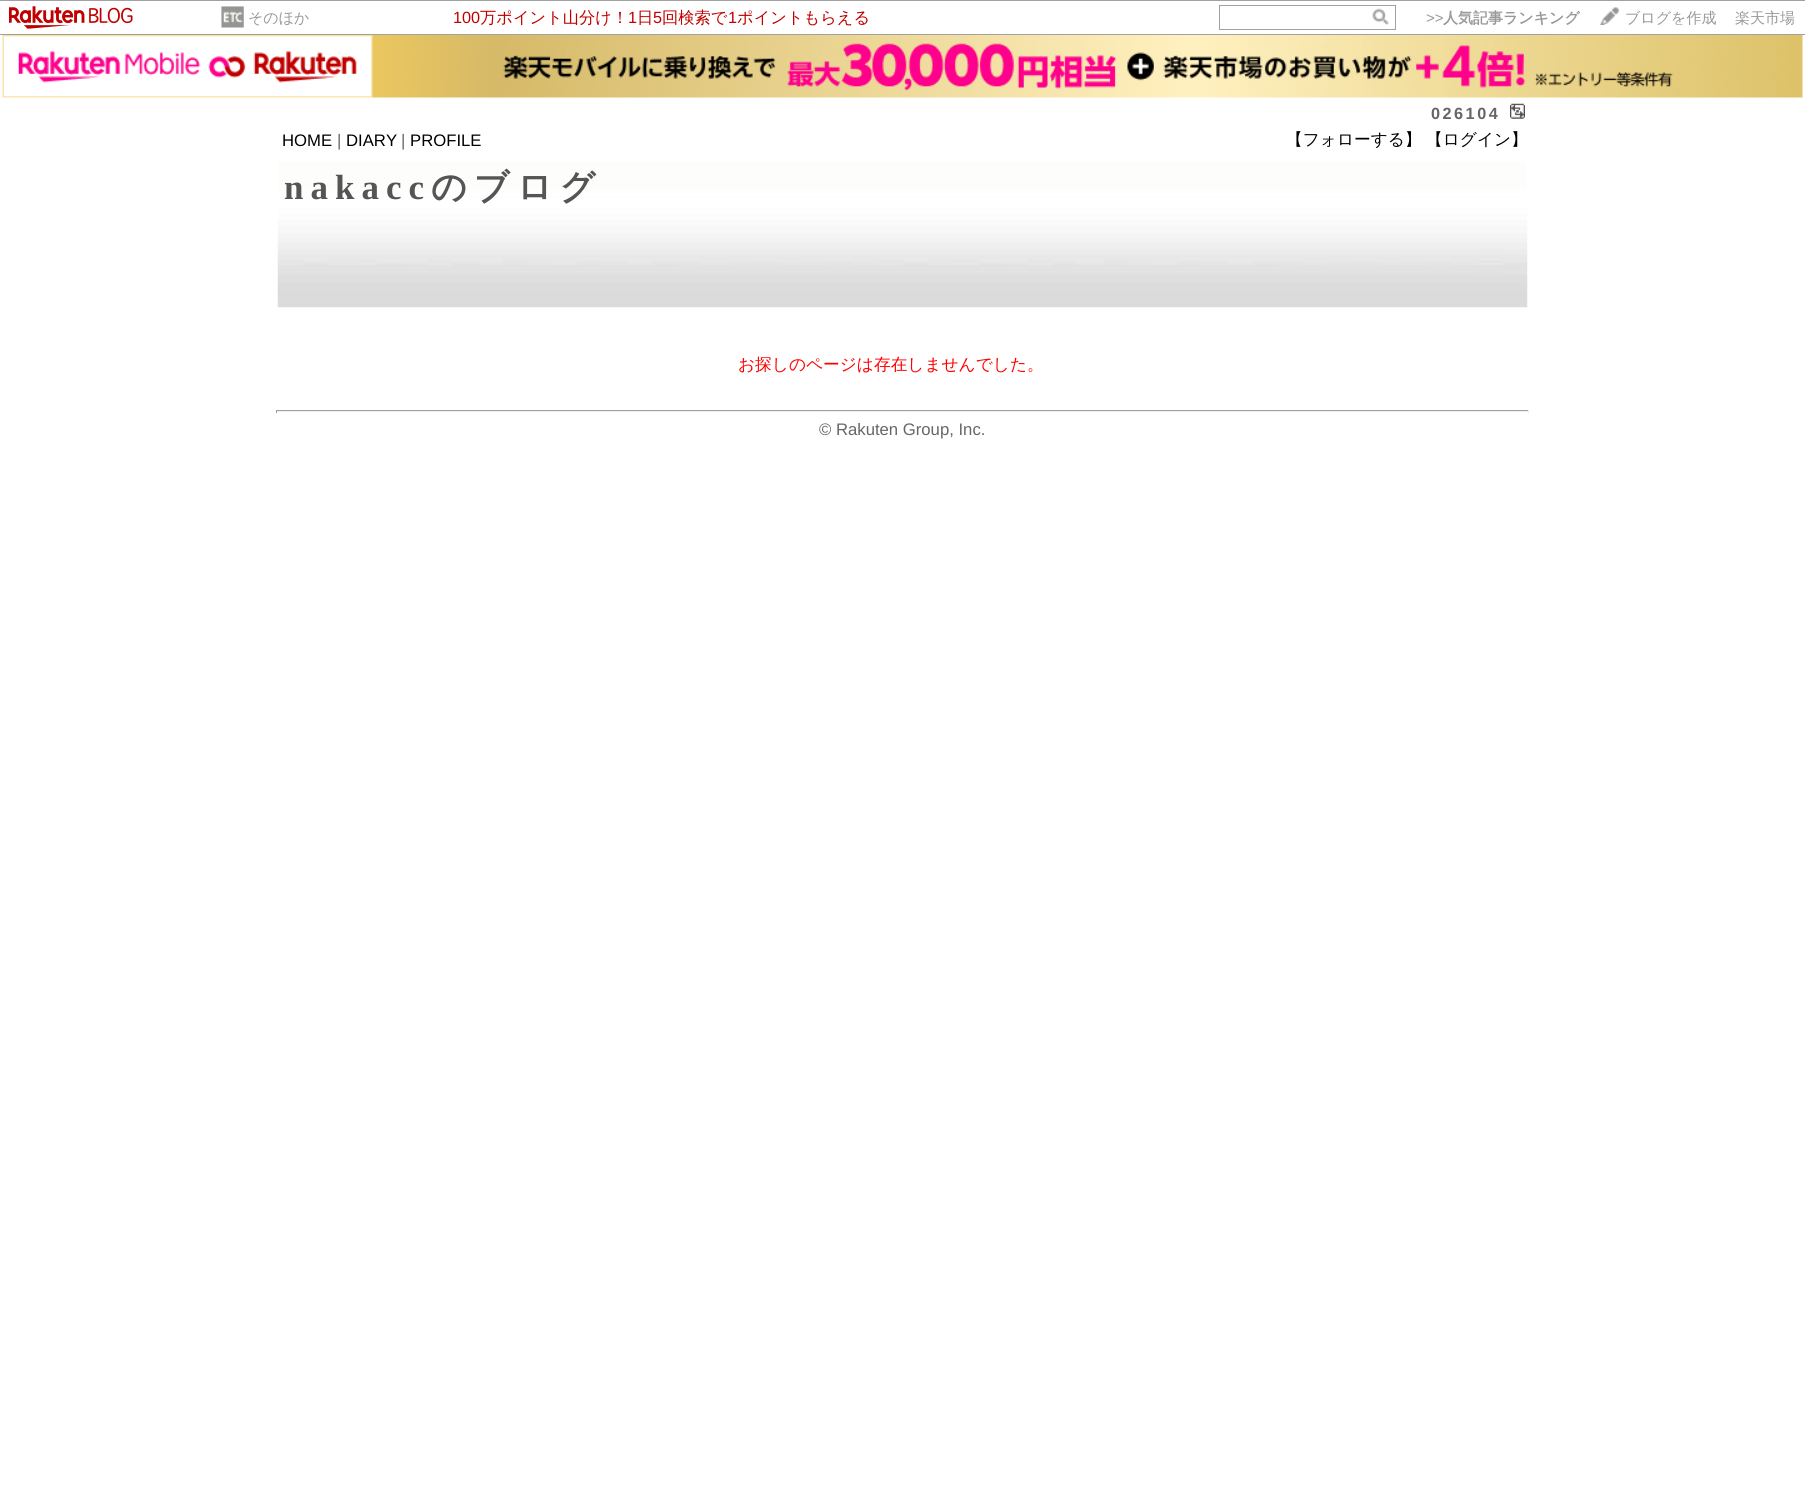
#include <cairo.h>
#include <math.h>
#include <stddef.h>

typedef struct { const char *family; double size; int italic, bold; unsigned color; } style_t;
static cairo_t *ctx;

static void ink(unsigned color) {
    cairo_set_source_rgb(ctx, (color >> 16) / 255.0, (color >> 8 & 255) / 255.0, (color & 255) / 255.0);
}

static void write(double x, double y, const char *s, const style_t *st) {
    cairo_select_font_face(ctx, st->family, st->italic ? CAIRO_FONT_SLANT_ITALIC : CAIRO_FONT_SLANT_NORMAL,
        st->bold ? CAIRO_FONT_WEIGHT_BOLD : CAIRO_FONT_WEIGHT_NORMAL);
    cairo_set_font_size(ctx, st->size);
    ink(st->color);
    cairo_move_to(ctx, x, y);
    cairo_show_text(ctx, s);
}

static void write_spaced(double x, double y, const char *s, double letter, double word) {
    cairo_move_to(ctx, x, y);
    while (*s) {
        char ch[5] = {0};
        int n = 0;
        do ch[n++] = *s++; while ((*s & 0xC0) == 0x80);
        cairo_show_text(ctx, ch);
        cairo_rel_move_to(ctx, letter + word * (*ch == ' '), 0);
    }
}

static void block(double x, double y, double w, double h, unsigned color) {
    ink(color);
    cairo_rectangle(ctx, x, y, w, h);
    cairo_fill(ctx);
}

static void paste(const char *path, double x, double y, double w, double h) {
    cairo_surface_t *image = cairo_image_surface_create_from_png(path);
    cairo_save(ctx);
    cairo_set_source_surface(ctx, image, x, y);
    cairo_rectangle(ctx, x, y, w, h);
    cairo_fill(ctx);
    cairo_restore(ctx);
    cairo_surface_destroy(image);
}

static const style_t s1 = {"WenQuanYi Zen Hei Medium", 15, 0, 0, 0x999999};
static const style_t s2 = {"Liberation Sans", 16.25, 0, 0, 0xbf0000};
static const style_t s3 = {"WenQuanYi Zen Hei Medium", 16.25, 0, 0, 0xbf0000};
static const style_t s4 = {"Liberation Sans", 15, 0, 0, 0x999999};
static const style_t s5 = {"WenQuanYi Zen Hei", 15, 0, 1, 0x999999};
static const style_t s6 = {"Liberation Sans", 16.7, 0, 0, 0x000000};
static const style_t s7 = {"Liberation Sans", 16.7, 0, 0, 0x666666};
static const style_t s8 = {"WenQuanYi Zen Hei Medium", 16.7, 0, 0, 0x000000};
static const style_t s9 = {"WenQuanYi Zen Hei Medium", 16.7, 0, 0, 0xff0000};

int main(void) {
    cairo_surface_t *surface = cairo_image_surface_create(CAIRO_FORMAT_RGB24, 1805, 1494);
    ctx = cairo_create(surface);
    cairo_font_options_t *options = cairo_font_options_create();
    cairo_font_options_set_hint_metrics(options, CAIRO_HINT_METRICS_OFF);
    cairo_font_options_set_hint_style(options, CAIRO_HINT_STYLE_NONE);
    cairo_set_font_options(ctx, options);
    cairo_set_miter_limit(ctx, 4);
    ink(0xffffff);
    cairo_paint(ctx);
    block(0, 0, 1805, 1, 0xa1a1a1);
    block(0, 34, 1805, 1, 0xa1a1a1);
    paste("pic1.png", 9, 6, 124, 23);
    paste("pic2.png", 221, 6, 23, 22);
    write(248, 23, "そのほか", &s1);
    write(453, 23, "100", &s2);
    write(480, 23, "万ポイント山分け！", &s3);
    write(628, 23, "1", &s2);
    write(637, 23, "日", &s3);
    write(653, 23, "5", &s2);
    write(662, 23, "回検索で", &s3);
    write(728, 23, "1", &s2);
    write(737, 23, "ポイントもらえる", &s3);
    cairo_rectangle(ctx, 1219.5, 5.5, 176, 24);
    ink(0xa1a1a1);
    cairo_set_line_width(ctx, 1);
    cairo_stroke(ctx);
    paste("pic3.png", 1372, 8, 17, 17);
    write(1426, 23, ">>", &s4);
    write(1443, 23, "人気記事ランキング", &s5);
    paste("pic4.png", 1599, 7, 20, 18);
    cairo_save(ctx);
    cairo_rectangle(ctx, 1425, 5, 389, 20);
    cairo_clip(ctx);
    write(1625, 23, "ブログを作成", &s1);
    cairo_restore(ctx);
    write(1735, 23, "楽天市場", &s1);
    paste("pic5.png", 2, 35, 1801, 63);
    cairo_select_font_face(ctx, "Liberation Sans", CAIRO_FONT_SLANT_NORMAL, CAIRO_FONT_WEIGHT_BOLD);
    cairo_set_font_size(ctx, 16.25);
    ink(0x666666);
    write_spaced(1431, 119, "026104", 2.5, 0);
    paste("pic6.png", 1510, 103, 15, 16);
    write(282, 146, "HOME", &s6);
    write(337, 146, "|", &s7);
    write(346, 146, "DIARY", &s6);
    write(401, 146, "|", &s7);
    write(410, 146, "PROFILE", &s6);
    write(1286, 145, "【フォローする】", &s8);
    write(1426, 145, "【ログイン】", &s8);
    paste("pic7.png", 277, 162, 1251, 146);
    cairo_select_font_face(ctx, "Liberation Serif", CAIRO_FONT_SLANT_NORMAL, CAIRO_FONT_WEIGHT_BOLD);
    cairo_set_font_size(ctx, 35);
    ink(0x555555);
    write_spaced(284, 199, "nakacc", 7, 0);
    cairo_select_font_face(ctx, "WenQuanYi Zen Hei", CAIRO_FONT_SLANT_NORMAL, CAIRO_FONT_WEIGHT_BOLD);
    write_spaced(431, 199, "のブログ", 7, 0);
    write(738, 370, "お探しのページは存在しませんでした。", &s9);
    block(276, 410, 1253, 1, 0x9f9f9f);
    block(1528, 410, 1, 3, 0xeeeeee);
    block(276, 411, 1253, 1, 0xeeeeee);
    block(276, 410, 1, 3, 0x9f9f9f);
    write(819, 435, "© Rakuten Group, Inc.", &s7);
    cairo_surface_write_to_png(surface, "screenshot.png");
    cairo_font_options_destroy(options);
    cairo_destroy(ctx);
    cairo_surface_destroy(surface);
    return 0;
}
